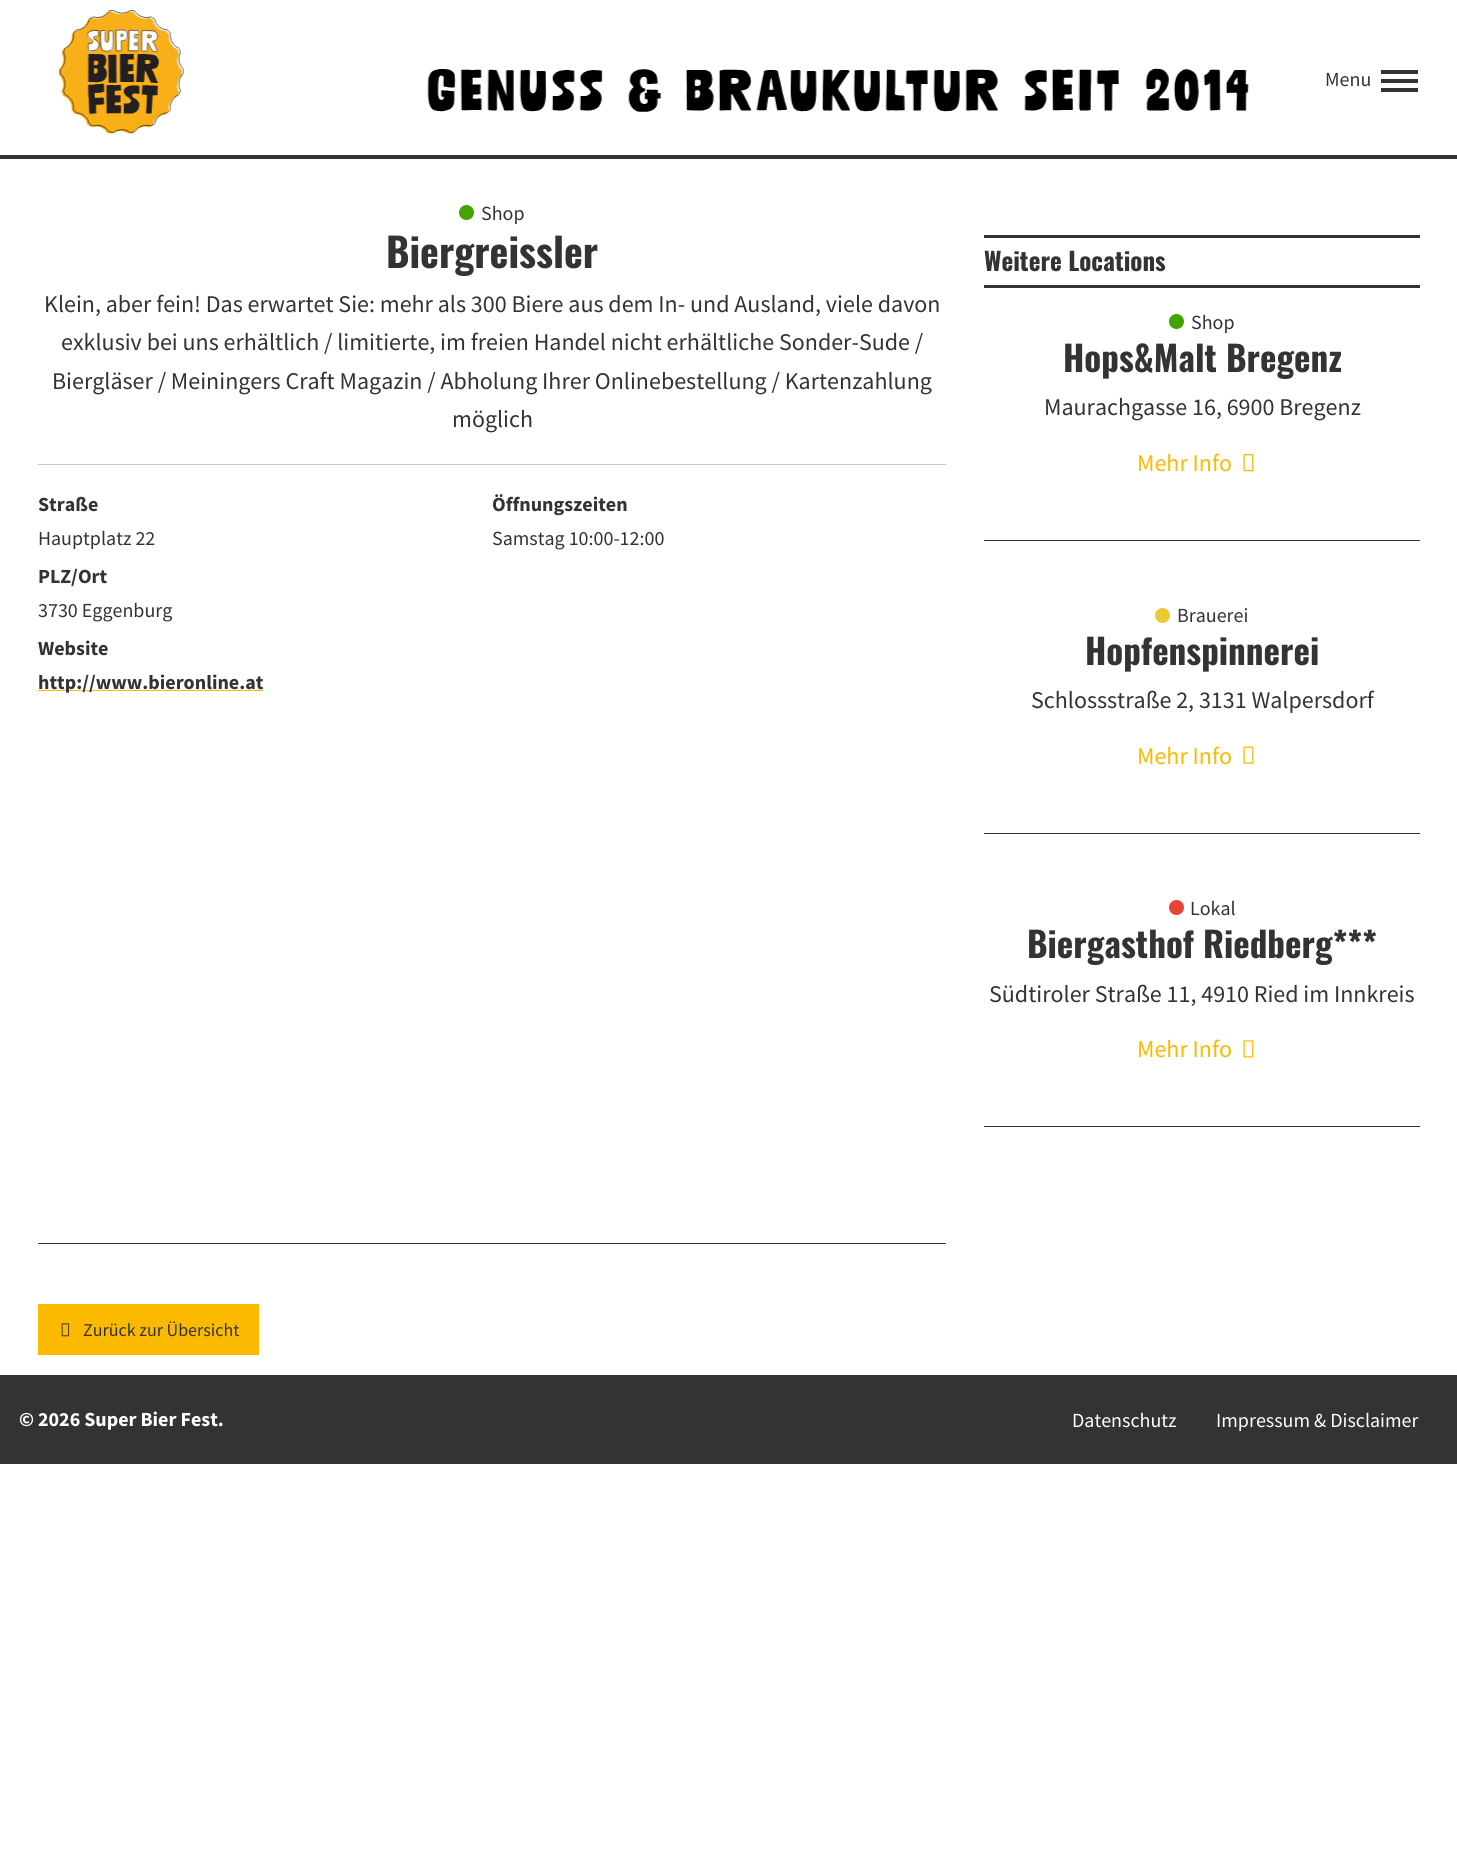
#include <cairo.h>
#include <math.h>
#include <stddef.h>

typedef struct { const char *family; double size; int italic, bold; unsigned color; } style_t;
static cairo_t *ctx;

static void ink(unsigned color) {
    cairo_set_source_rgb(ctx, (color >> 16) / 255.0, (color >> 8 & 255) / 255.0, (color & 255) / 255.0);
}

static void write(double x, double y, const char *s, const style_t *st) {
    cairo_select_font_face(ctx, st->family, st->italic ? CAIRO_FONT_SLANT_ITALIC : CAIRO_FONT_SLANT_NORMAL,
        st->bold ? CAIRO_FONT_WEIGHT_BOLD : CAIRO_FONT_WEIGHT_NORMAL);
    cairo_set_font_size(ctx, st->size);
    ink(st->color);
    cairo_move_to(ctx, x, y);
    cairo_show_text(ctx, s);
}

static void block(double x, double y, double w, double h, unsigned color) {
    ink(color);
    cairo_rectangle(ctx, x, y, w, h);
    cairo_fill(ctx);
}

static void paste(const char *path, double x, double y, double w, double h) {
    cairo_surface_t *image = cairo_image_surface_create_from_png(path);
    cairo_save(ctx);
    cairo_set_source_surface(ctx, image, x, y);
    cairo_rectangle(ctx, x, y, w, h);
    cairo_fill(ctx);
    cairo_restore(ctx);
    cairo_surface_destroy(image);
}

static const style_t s1 = {"Source Sans Pro", 20, 0, 0, 0x333333};
static const style_t s2 = {"Oswald", 40, 0, 1, 0x333333};
static const style_t s3 = {"Source Sans Pro", 24, 0, 0, 0x333333};
static const style_t s4 = {"Source Sans Pro", 20, 0, 1, 0x333333};
static const style_t s5 = {"Source Sans Pro", 18, 0, 0, 0x333333};
static const style_t s6 = {"Oswald", 25, 0, 1, 0x333333};
static const style_t s7 = {"Oswald", 35, 0, 1, 0x333333};
static const style_t s8 = {"Source Sans Pro", 24, 0, 0, 0xfbb900};
static const style_t s9 = {"Source Sans Pro", 20, 0, 1, 0xfefefe};
static const style_t s10 = {"Source Sans Pro", 20, 0, 0, 0xfefefe};

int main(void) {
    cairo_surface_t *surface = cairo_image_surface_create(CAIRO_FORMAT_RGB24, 1457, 1873);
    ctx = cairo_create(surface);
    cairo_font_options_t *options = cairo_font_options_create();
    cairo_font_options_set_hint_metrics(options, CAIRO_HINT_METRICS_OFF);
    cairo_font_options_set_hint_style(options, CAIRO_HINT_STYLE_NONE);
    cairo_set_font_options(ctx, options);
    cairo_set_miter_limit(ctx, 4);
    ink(0xffffff);
    cairo_paint(ctx);
    block(0, 155, 1457, 4, 0x333333);
    paste("pic1.png", 59, 10, 125, 124);
    paste("pic2.png", 427, 68, 822, 44);
    write(1325, 86, "Menu", &s1);
    block(1381, 88, 37, 4, 0x333333);
    block(1381, 79, 37, 4, 0x333333);
    block(1381, 70, 37, 4, 0x333333);
    block(38, 1243, 908, 1, 0x333333);
    ink(0x43a301);
    cairo_new_path(ctx);
    cairo_arc(ctx, 466.5, 212.5, 7.5, 0, 2 * M_PI);
    cairo_fill(ctx);
    write(481, 220, "Shop", &s1);
    write(386, 268, "Biergreissler", &s2);
    write(44, 312, "Klein, aber fein! Das erwartet Sie: mehr als 300 Biere aus dem In- und Ausland, viele davon", &s3);
    write(61, 350, "exklusiv bei uns erhältlich / limitierte, im freien Handel nicht erhältliche Sonder-Sude /", &s3);
    write(52, 389, "Biergläser / Meiningers Craft Magazin / Abholung Ihrer Onlinebestellung / Kartenzahlung", &s3);
    write(452, 427, "möglich", &s3);
    block(38, 464, 908, 1, 0xcacaca);
    write(38, 511, "Straße", &s4);
    write(38, 545, "Hauptplatz 22", &s1);
    write(38, 583, "PLZ/Ort", &s4);
    write(38, 617, "3730 Eggenburg", &s1);
    write(38, 655, "Website", &s4);
    block(38, 690, 225, 1, 0xfbb900);
    write(38, 689, "http://www.bieronline.at", &s4);
    write(492, 511, "Öffnungszeiten", &s4);
    write(492, 545, "Samstag 10:00-12:00", &s1);
    block(38, 1304, 221, 51, 0xfbb900);
    paste("pic3.png", 61, 1323, 9, 14);
    write(83, 1336, "Zurück zur Übersicht", &s5);
    block(984, 235, 436, 3, 0x333333);
    block(984, 285, 436, 3, 0x333333);
    write(984, 271, "Weitere Locations", &s6);
    block(984, 540, 436, 1, 0x333333);
    ink(0x43a301);
    cairo_new_path(ctx);
    cairo_arc(ctx, 1176.5, 321.5, 7.5, 0, 2 * M_PI);
    cairo_fill(ctx);
    write(1191, 329, "Shop", &s1);
    write(1063, 372, "Hops&Malt Bregenz", &s7);
    write(1044, 415, "Maurachgasse 16, 6900 Bregenz", &s3);
    write(1137, 471, "Mehr Info", &s8);
    paste("pic4.png", 1243, 454, 11, 18);
    block(984, 833, 436, 1, 0x333333);
    ink(0xeaca35);
    cairo_arc(ctx, 1162.5, 615.5, 7.5, 0, 2 * M_PI);
    cairo_fill(ctx);
    write(1177, 622, "Brauerei", &s1);
    write(1085, 665, "Hopfenspinnerei", &s7);
    write(1031, 708, "Schlossstraße 2, 3131 Walpersdorf", &s3);
    write(1137, 764, "Mehr Info", &s8);
    paste("pic5.png", 1243, 746, 11, 18);
    block(984, 1126, 436, 1, 0x333333);
    ink(0xe94335);
    cairo_arc(ctx, 1176.5, 907.5, 7.5, 0, 2 * M_PI);
    cairo_fill(ctx);
    write(1190, 915, "Lokal", &s1);
    write(1027, 958, "Biergasthof Riedberg***", &s7);
    write(989, 1002, "Südtiroler Straße 11, 4910 Ried im Innkreis", &s3);
    write(1137, 1057, "Mehr Info", &s8);
    paste("pic6.png", 1243, 1040, 11, 18);
    block(0, 1375, 1457, 89, 0x333333);
    write(19, 1426, "© 2026 Super Bier Fest.", &s9);
    write(1072, 1427, "Datenschutz", &s10);
    write(1216, 1427, "Impressum & Disclaimer", &s10);
    cairo_surface_write_to_png(surface, "screenshot.png");
    cairo_font_options_destroy(options);
    cairo_destroy(ctx);
    cairo_surface_destroy(surface);
    return 0;
}
